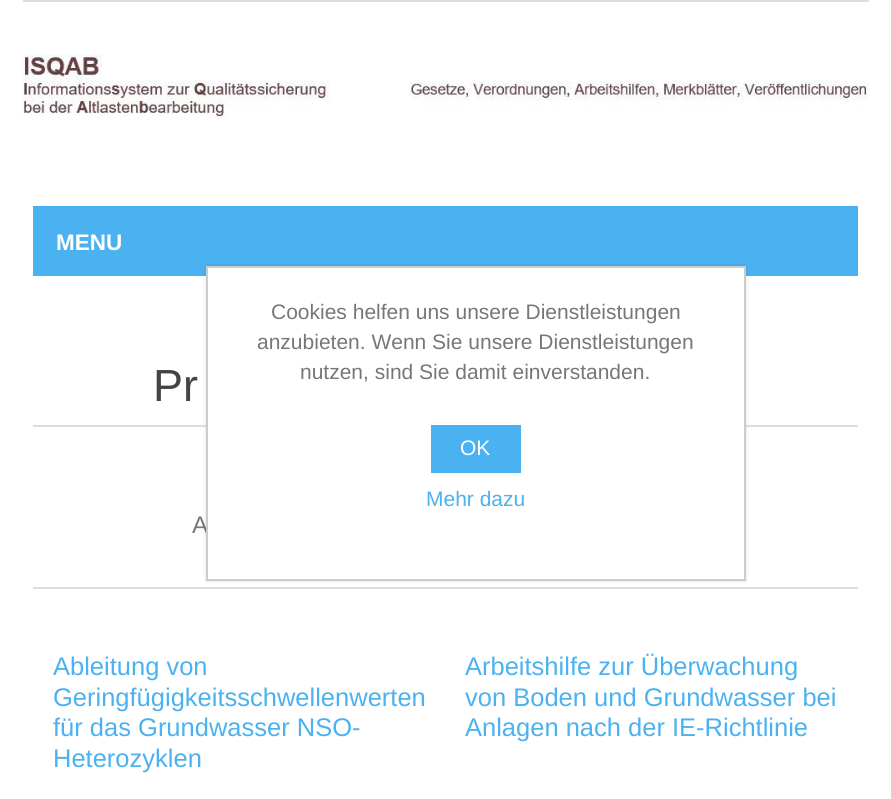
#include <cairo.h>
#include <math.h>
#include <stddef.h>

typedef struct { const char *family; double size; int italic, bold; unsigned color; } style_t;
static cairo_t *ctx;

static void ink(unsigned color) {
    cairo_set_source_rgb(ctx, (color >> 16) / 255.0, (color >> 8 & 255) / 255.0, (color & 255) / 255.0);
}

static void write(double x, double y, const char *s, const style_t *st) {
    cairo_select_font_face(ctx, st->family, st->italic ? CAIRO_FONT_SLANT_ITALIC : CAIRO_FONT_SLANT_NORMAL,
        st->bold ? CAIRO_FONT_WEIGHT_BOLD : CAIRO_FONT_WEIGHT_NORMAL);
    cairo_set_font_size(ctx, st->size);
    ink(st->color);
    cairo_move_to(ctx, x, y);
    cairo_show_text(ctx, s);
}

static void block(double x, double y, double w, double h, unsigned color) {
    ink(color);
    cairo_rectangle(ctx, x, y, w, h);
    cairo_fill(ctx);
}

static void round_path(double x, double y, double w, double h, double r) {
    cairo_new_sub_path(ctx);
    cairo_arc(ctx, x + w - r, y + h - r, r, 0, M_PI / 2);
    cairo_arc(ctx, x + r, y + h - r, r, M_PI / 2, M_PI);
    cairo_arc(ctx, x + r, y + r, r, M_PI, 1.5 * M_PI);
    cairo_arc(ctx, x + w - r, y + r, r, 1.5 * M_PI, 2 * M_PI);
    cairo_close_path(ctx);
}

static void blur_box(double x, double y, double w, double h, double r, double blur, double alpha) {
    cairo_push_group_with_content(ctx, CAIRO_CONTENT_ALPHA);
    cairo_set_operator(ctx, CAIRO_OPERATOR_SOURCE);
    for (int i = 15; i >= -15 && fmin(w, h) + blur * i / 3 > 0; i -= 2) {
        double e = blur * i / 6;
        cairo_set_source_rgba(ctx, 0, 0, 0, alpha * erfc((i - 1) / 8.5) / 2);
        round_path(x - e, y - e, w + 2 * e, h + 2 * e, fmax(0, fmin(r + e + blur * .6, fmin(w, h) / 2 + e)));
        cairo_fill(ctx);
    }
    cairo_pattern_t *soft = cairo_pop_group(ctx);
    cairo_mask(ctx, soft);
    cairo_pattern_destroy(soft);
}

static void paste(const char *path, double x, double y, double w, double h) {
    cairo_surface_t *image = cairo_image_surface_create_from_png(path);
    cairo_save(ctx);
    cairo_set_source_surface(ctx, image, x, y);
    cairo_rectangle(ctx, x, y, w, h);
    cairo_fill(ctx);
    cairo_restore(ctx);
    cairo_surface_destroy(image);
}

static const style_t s1 = {"Liberation Sans", 22.5, 0, 1, 0xffffff};
static const style_t s2 = {"Liberation Sans", 45, 0, 0, 0x444444};
static const style_t s3 = {"Liberation Sans", 24, 0, 0, 0x777777};
static const style_t s4 = {"Liberation Sans", 25.5, 0, 0, 0x4ab2f1};
static const style_t s5 = {"Liberation Sans", 21, 0, 0, 0x777777};
static const style_t s6 = {"Liberation Sans", 21, 0, 0, 0xffffff};
static const style_t s7 = {"Liberation Sans", 21, 0, 0, 0x4ab2f1};

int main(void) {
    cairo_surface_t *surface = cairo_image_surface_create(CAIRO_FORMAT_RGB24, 891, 799);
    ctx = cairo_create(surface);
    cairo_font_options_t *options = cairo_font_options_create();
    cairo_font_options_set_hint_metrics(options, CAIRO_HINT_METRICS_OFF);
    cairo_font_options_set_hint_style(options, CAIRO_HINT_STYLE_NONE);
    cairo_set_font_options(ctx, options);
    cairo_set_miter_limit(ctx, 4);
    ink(0xffffff);
    cairo_paint(ctx);
    block(23, 0, 846, 2, 0xdddddd);
    paste("pic1.png", 22, 54, 847, 65);
    block(33, 206, 825, 70, 0x4ab2f1);
    write(56, 250, "MENU", &s1);
    block(33, 425, 825, 2, 0xdddddd);
    write(153, 401, "Pr", &s2);
    block(33, 587, 825, 2, 0xdddddd);
    write(192, 533, "A", &s3);
    write(53, 675, "Ableitung von", &s4);
    write(53, 706, "Geringfügigkeitsschwellenwerten", &s4);
    write(53, 736, "für das Grundwasser NSO-", &s4);
    write(53, 767, "Heterozyklen", &s4);
    write(465, 675, "Arbeitshilfe zur Überwachung", &s4);
    write(465, 706, "von Boden und Grundwasser bei", &s4);
    write(465, 736, "Anlagen nach der IE-Richtlinie", &s4);
    ink(0x000000);
    blur_box(206, 266, 540, 315, 0, 1.5, 0.15);
    ink(0xffffff);
    cairo_rectangle(ctx, 207, 267, 538, 313);
    cairo_fill_preserve(ctx);
    ink(0xcccccc);
    cairo_stroke(ctx);
    write(271, 319, "Cookies helfen uns unsere Dienstleistungen", &s5);
    write(257, 349, "anzubieten. Wenn Sie unsere Dienstleistungen", &s5);
    write(300, 379, "nutzen, sind Sie damit einverstanden.", &s5);
    block(431, 425, 90, 48, 0x4ab2f1);
    write(460, 455, "OK", &s6);
    write(426, 506, "Mehr dazu", &s7);
    cairo_surface_write_to_png(surface, "screenshot.png");
    cairo_font_options_destroy(options);
    cairo_destroy(ctx);
    cairo_surface_destroy(surface);
    return 0;
}
